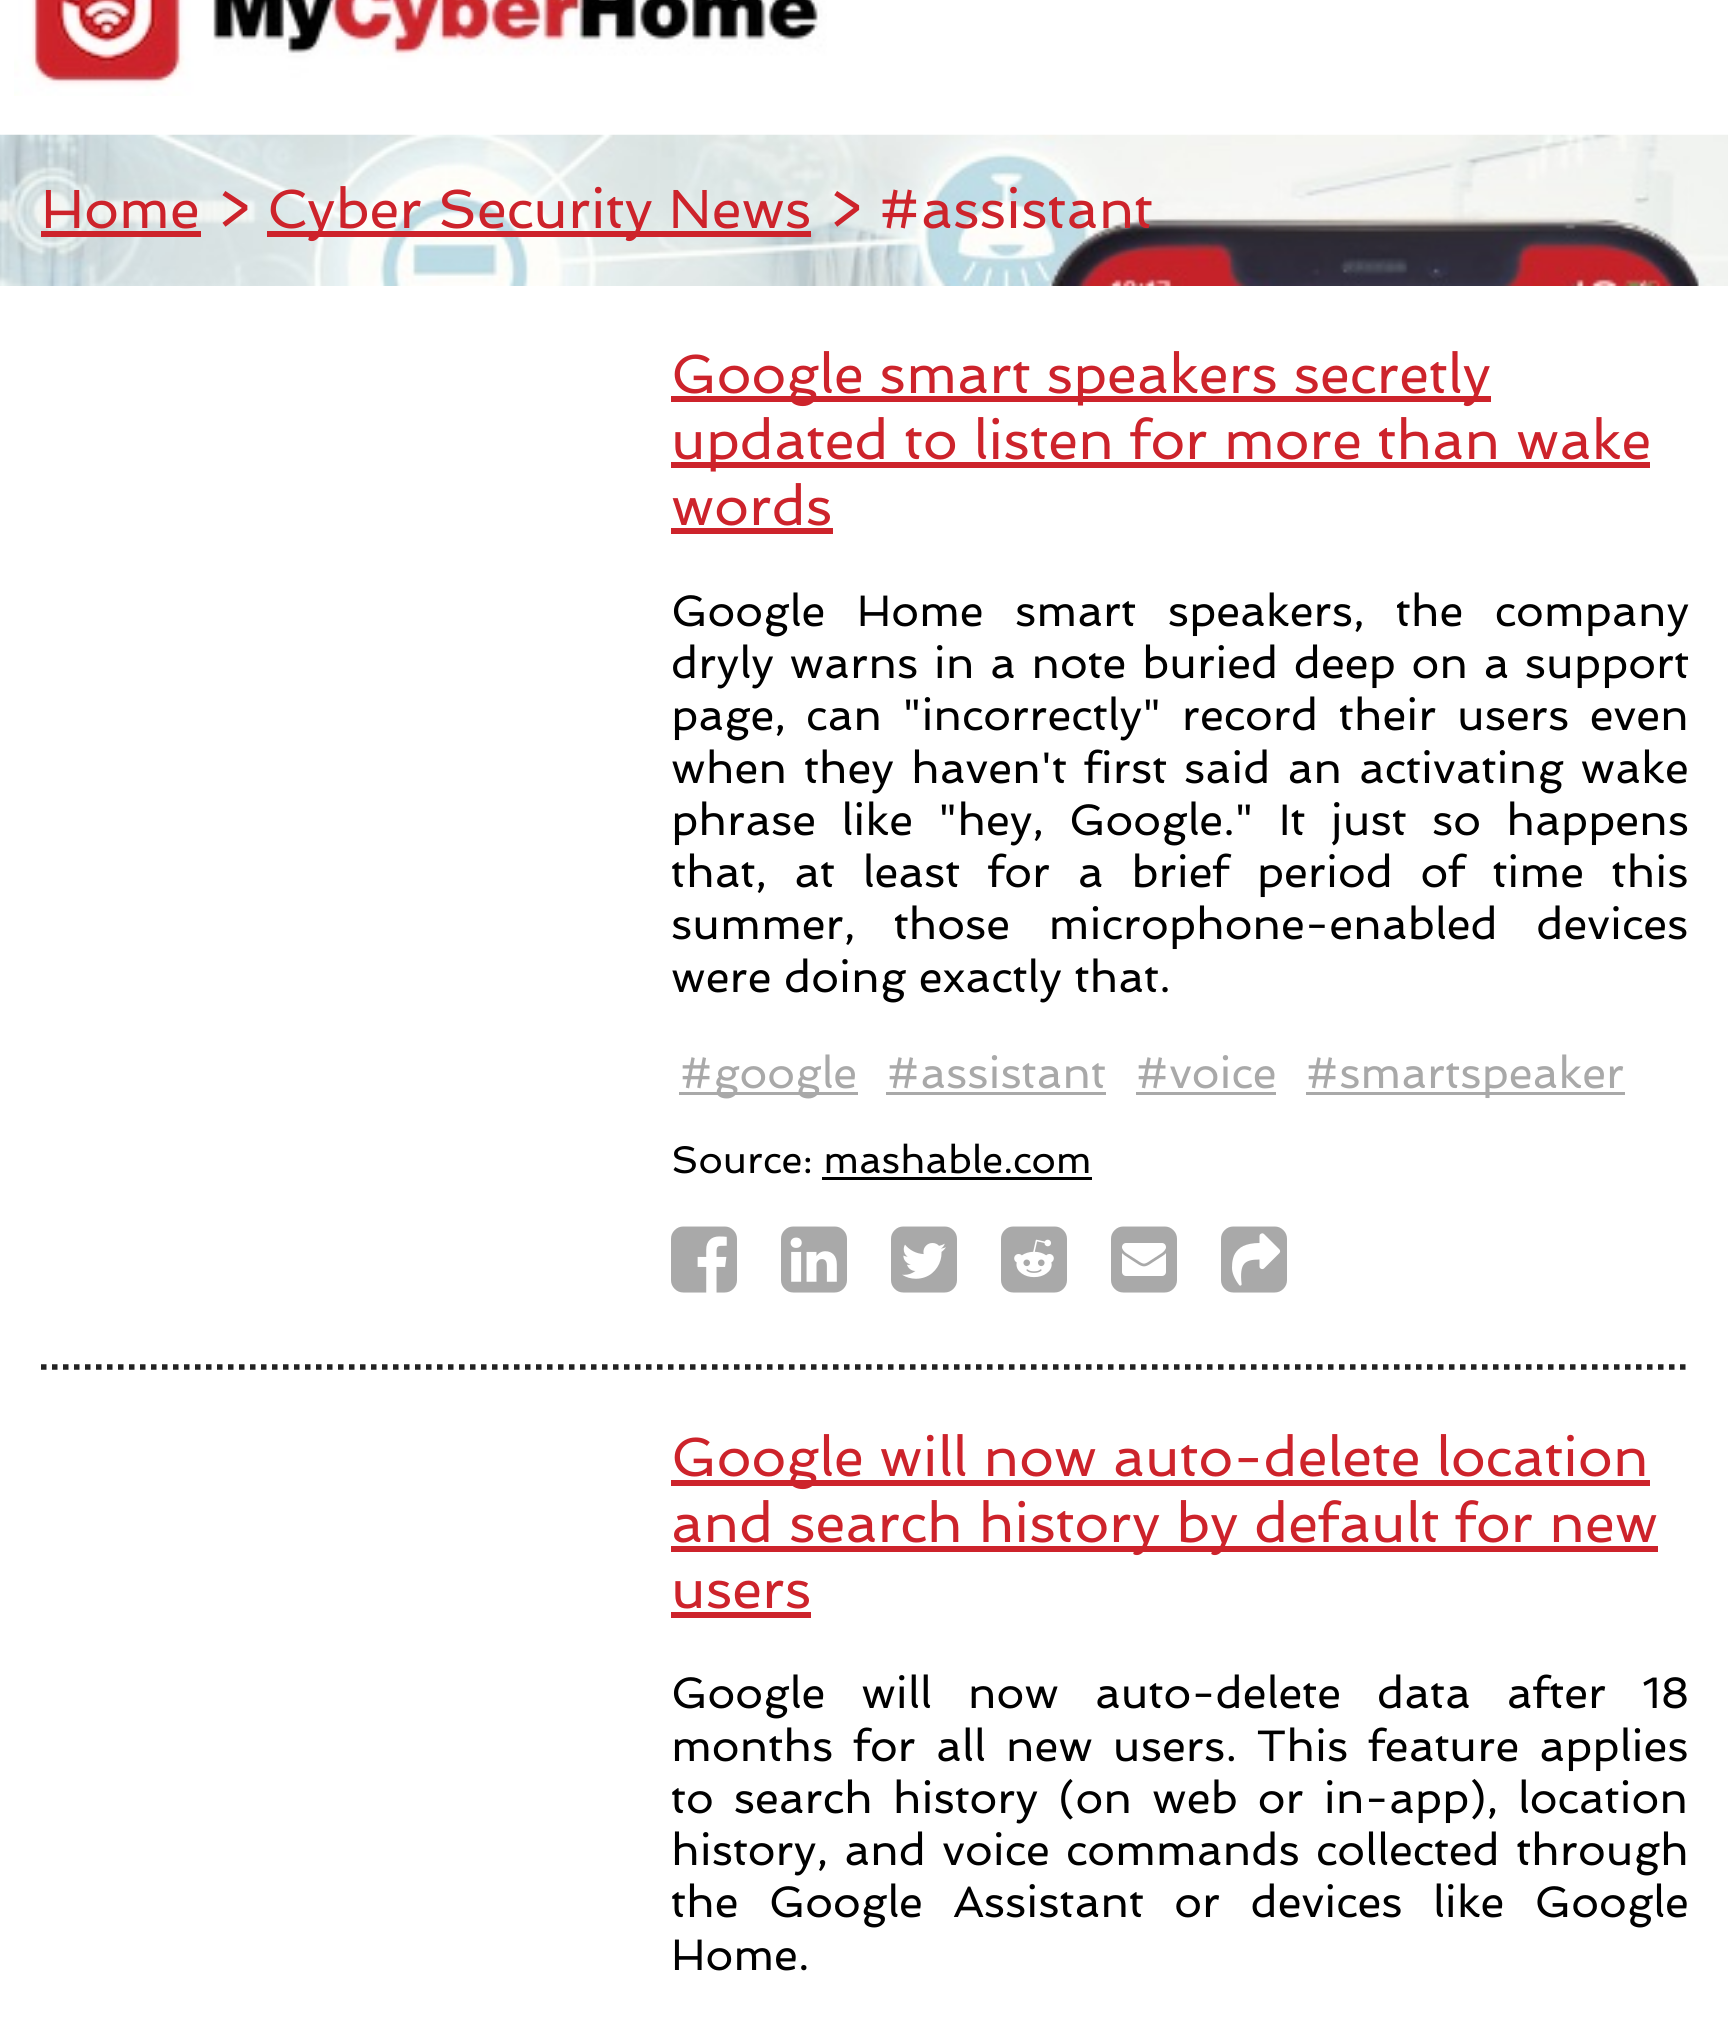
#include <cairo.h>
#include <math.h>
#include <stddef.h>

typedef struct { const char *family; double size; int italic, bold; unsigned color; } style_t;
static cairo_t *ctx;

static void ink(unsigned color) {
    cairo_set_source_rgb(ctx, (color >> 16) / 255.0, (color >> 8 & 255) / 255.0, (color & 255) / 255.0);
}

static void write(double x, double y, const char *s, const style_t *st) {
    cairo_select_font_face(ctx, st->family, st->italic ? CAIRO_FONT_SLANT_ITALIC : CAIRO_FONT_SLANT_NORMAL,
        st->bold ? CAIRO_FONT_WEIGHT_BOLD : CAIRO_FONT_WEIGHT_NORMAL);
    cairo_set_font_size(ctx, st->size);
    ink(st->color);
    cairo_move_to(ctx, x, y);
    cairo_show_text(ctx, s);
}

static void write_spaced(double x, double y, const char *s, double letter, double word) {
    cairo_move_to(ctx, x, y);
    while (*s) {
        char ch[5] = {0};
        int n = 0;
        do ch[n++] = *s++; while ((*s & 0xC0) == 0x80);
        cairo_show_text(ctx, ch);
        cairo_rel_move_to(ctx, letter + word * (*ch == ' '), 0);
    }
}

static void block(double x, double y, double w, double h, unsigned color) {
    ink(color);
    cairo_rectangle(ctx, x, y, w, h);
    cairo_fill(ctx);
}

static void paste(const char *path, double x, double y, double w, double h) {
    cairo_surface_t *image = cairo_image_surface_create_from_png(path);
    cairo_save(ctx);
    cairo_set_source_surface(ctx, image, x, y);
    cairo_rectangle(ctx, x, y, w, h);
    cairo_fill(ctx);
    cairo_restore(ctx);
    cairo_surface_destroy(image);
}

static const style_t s1 = {"Spinnaker", 55, 0, 0, 0xcd232b};
static const style_t s2 = {"Spinnaker", 44, 0, 0, 0x000000};
static const style_t s3 = {"Spinnaker", 44, 0, 0, 0xa9a9a9};
static const style_t s4 = {"Spinnaker", 38.5, 0, 0, 0x000000};

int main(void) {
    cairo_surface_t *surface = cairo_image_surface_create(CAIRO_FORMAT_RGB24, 1728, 2017);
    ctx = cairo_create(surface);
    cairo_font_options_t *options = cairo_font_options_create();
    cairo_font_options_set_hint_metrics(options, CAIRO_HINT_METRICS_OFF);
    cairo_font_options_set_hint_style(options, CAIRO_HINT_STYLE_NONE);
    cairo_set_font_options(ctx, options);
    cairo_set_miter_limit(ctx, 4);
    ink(0xffffff);
    cairo_paint(ctx);
    paste("pic1.png", 14, 0, 813, 96);
    paste("pic2.png", 0, 134, 1728, 152);
    write(41, 228, "Home >", &s1);
    block(41, 231, 160, 6, 0xcd232b);
    block(267, 231, 544, 6, 0xcd232b);
    write(267, 228, "Cyber Security News > #assistant", &s1);
    cairo_new_path(ctx);
    cairo_move_to(ctx, 41, 1367);
    cairo_line_to(ctx, 1688.5, 1367);
    ink(0x222222);
    cairo_set_line_width(ctx, 5.5);
    cairo_set_dash(ctx, (double[]){5.5, 5.5}, 2, 0);
    cairo_stroke(ctx);
    block(671, 396, 820, 6, 0xcd232b);
    write(671, 393, "Google smart speakers secretly", &s1);
    block(671, 462, 979, 6, 0xcd232b);
    write(671, 459, "updated to listen for more than wake", &s1);
    write(671, 525, "words", &s1);
    block(671, 528, 162, 6, 0xcd232b);
    cairo_set_font_size(ctx, 44);
    ink(0x000000);
    write_spaced(671, 626, "Google Home smart speakers, the company", 0, 19);
    write_spaced(671, 678, "dryly warns in a note buried deep on a support", 0, 3);
    write_spaced(671, 730, "page, can \"incorrectly\" record their users even", 0, 8);
    write_spaced(671, 783, "when they haven't first said an activating wake", 0, 4.5);
    write_spaced(671, 835, "phrase like \"hey, Google.\" It just so happens", 0, 12.75);
    write_spaced(671, 887, "that, at least for a brief period of time this", 0, 15);
    write_spaced(671, 939, "summer, those microphone-enabled devices", 0, 26);
    write(671, 992, "were doing exactly that.", &s2);
    block(679, 1092, 179, 3, 0xa9a9a9);
    write(679, 1088, "#google", &s3);
    write(886, 1088, "#assistant", &s3);
    block(886, 1092, 220, 3, 0xa9a9a9);
    write(1135, 1088, "#voice", &s3);
    block(1136, 1092, 140, 3, 0xa9a9a9);
    block(1306, 1092, 319, 3, 0xa9a9a9);
    write(1305, 1088, "#smartspeaker", &s3);
    write(671, 1173, "Source: mashable.com", &s4);
    block(822, 1177, 270, 3, 0x000000);
    paste("pic3.png", 671, 1226, 66, 67);
    paste("pic4.png", 781, 1226, 66, 67);
    paste("pic5.png", 891, 1226, 66, 67);
    paste("pic6.png", 1001, 1226, 66, 67);
    paste("pic7.png", 1111, 1226, 66, 67);
    paste("pic8.png", 1221, 1226, 66, 67);
    block(671, 1480, 979, 6, 0xcd232b);
    write(671, 1476, "Google will now auto-delete location", &s1);
    block(671, 1546, 987, 6, 0xcd232b);
    write(671, 1542, "and search history by default for new", &s1);
    write(671, 1608, "users", &s1);
    block(671, 1612, 140, 6, 0xcd232b);
    cairo_set_font_size(ctx, 44);
    ink(0x000000);
    write_spaced(671, 1708, "Google will now auto-delete data after 18", 0, 23.5);
    write_spaced(671, 1761, "months for all new users. This feature applies", 0, 7.5);
    write_spaced(671, 1813, "to search history (on web or in-app), location", 0, 7.5);
    write_spaced(671, 1865, "history, and voice commands collected through", 0, 3.75);
    write_spaced(671, 1917, "the Google Assistant or devices like Google", 0, 17.75);
    write(671, 1970, "Home.", &s2);
    cairo_surface_write_to_png(surface, "screenshot.png");
    cairo_font_options_destroy(options);
    cairo_destroy(ctx);
    cairo_surface_destroy(surface);
    return 0;
}
